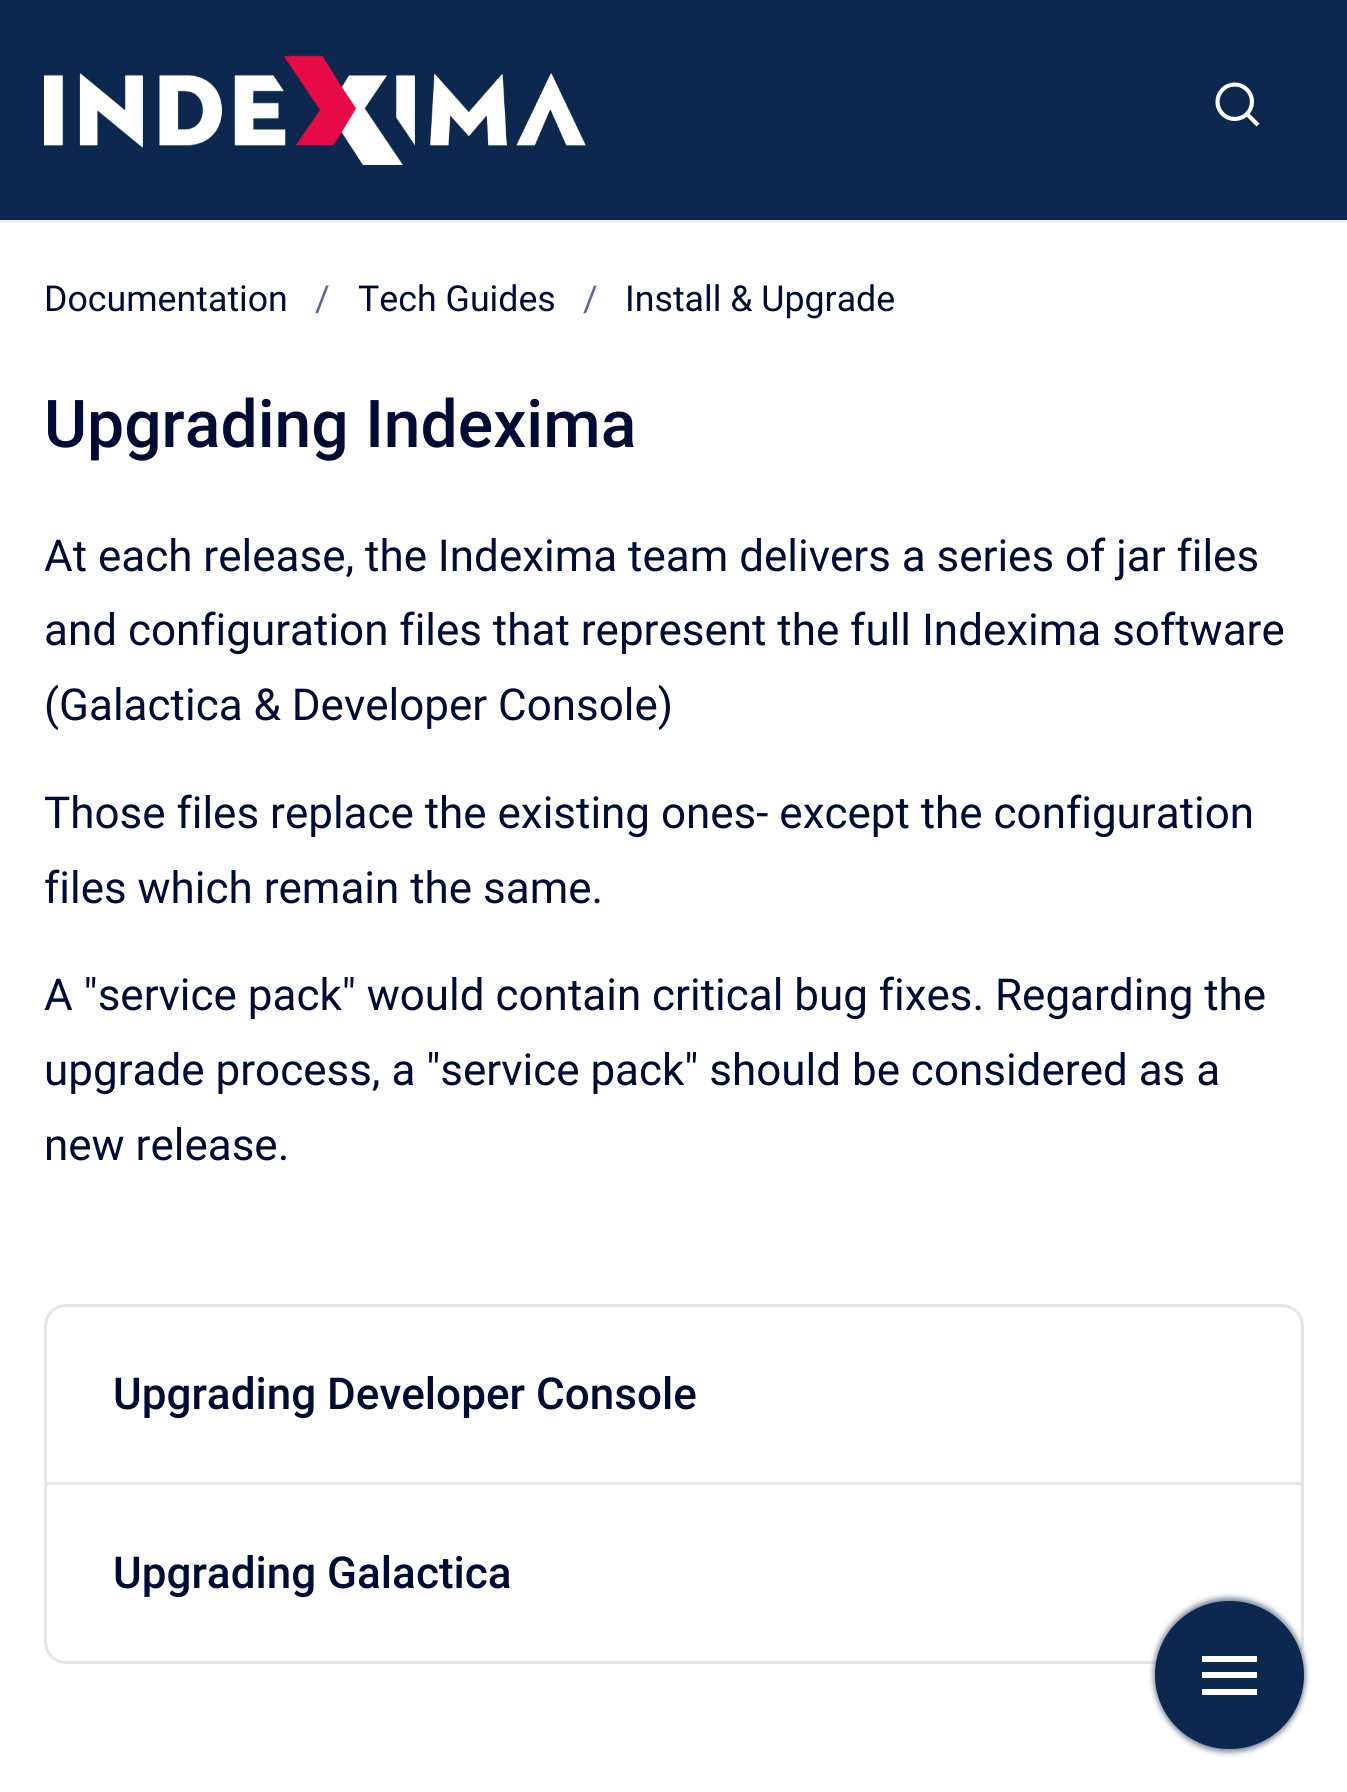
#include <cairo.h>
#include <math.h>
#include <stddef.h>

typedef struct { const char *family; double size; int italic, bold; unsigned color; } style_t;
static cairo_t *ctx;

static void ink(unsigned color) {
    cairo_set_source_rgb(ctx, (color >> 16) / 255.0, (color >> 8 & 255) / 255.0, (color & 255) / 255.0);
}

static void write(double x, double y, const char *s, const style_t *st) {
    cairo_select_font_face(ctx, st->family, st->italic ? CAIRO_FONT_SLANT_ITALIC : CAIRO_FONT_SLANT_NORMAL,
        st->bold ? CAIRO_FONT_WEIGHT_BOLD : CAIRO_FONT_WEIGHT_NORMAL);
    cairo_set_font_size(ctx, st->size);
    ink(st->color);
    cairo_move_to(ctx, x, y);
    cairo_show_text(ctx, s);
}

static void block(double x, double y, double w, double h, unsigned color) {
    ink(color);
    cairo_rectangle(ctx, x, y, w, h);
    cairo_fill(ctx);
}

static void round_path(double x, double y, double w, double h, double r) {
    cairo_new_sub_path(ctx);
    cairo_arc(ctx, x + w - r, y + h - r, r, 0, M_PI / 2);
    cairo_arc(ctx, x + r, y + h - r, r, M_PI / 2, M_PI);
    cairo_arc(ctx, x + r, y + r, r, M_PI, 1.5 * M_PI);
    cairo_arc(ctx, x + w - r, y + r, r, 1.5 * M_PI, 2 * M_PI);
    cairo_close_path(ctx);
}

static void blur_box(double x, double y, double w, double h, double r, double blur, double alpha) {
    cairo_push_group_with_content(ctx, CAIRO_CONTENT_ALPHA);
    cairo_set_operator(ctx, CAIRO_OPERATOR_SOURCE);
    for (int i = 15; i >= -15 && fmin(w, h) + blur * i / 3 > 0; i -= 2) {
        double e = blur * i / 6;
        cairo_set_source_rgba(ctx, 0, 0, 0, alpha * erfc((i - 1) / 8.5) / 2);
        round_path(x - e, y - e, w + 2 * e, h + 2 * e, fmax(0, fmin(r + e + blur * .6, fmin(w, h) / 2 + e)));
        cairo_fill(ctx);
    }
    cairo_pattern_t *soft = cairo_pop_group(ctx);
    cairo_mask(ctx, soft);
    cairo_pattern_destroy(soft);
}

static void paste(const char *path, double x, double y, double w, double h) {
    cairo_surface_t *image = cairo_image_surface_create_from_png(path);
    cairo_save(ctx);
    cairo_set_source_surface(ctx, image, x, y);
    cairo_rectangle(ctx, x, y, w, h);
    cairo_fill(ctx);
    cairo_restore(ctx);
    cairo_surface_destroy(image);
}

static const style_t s1 = {"Roboto", 35.75, 0, 0, 0x000c34};
static const style_t s2 = {"Roboto", 35.75, 0, 0, 0x5d6b8f};
static const style_t s3 = {"Roboto Medium", 66, 0, 0, 0x000c34};
static const style_t s4 = {"Roboto", 44, 0, 0, 0x000c34};
static const style_t s5 = {"Roboto Medium", 44, 0, 0, 0x000c34};

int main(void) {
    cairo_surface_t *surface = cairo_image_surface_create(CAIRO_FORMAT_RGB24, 1347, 1792);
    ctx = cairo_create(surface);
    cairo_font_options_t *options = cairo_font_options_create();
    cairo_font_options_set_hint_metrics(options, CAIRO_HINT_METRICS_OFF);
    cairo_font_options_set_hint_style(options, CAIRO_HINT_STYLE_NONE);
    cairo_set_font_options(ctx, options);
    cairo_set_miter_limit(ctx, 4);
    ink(0xffffff);
    cairo_paint(ctx);
    block(0, 0, 1347, 220, 0x0d284f);
    block(0, 220, 1347, 3, 0xeff0f4);
    paste("pic1.png", 44, 55, 542, 110);
    paste("pic2.png", 1215, 82, 45, 45);
    write(44, 311, "Documentation", &s1);
    write(315, 311, "/", &s2);
    write(358, 311, "Tech Guides", &s1);
    write(583, 311, "/", &s2);
    write(625, 311, "Install & Upgrade", &s1);
    write(44, 447, "Upgrading Indexima", &s3);
    write(44, 571, "At each release, the Indexima team delivers a series of jar files", &s4);
    write(44, 645, "and configuration files that represent the full Indexima software", &s4);
    write(44, 720, "(Galactica & Developer Console)", &s4);
    write(44, 828, "Those files replace the existing ones- except the configuration", &s4);
    write(44, 903, "files which remain the same.", &s4);
    write(44, 1010, "A \"service pack\" would contain critical bug fixes. Regarding the", &s4);
    write(44, 1085, "upgrade process, a \"service pack\" should be considered as a", &s4);
    write(44, 1160, "new release.", &s4);
    round_path(45.5, 1305.5, 1257, 357, 20.5);
    ink(0xe2e5eb);
    cairo_set_line_width(ctx, 3);
    cairo_stroke(ctx);
    write(113, 1409, "Upgrading Developer Console", &s5);
    block(47, 1482, 1254, 3, 0xe2e5eb);
    write(113, 1588, "Upgrading Galactica", &s5);
    ink(0x7a869a);
    blur_box(1155, 1598, 149, 148, 74, 3, 1);
    blur_box(1155, 1603, 149, 149, 74.5, 3, 1);
    ink(0x0d284f);
    round_path(1155, 1601, 149, 148, 74);
    cairo_fill(ctx);
    block(1202, 1656, 55, 6, 0xffffff);
    block(1202, 1672, 55, 6, 0xffffff);
    block(1202, 1689, 55, 6, 0xffffff);
    cairo_surface_write_to_png(surface, "screenshot.png");
    cairo_font_options_destroy(options);
    cairo_destroy(ctx);
    cairo_surface_destroy(surface);
    return 0;
}
